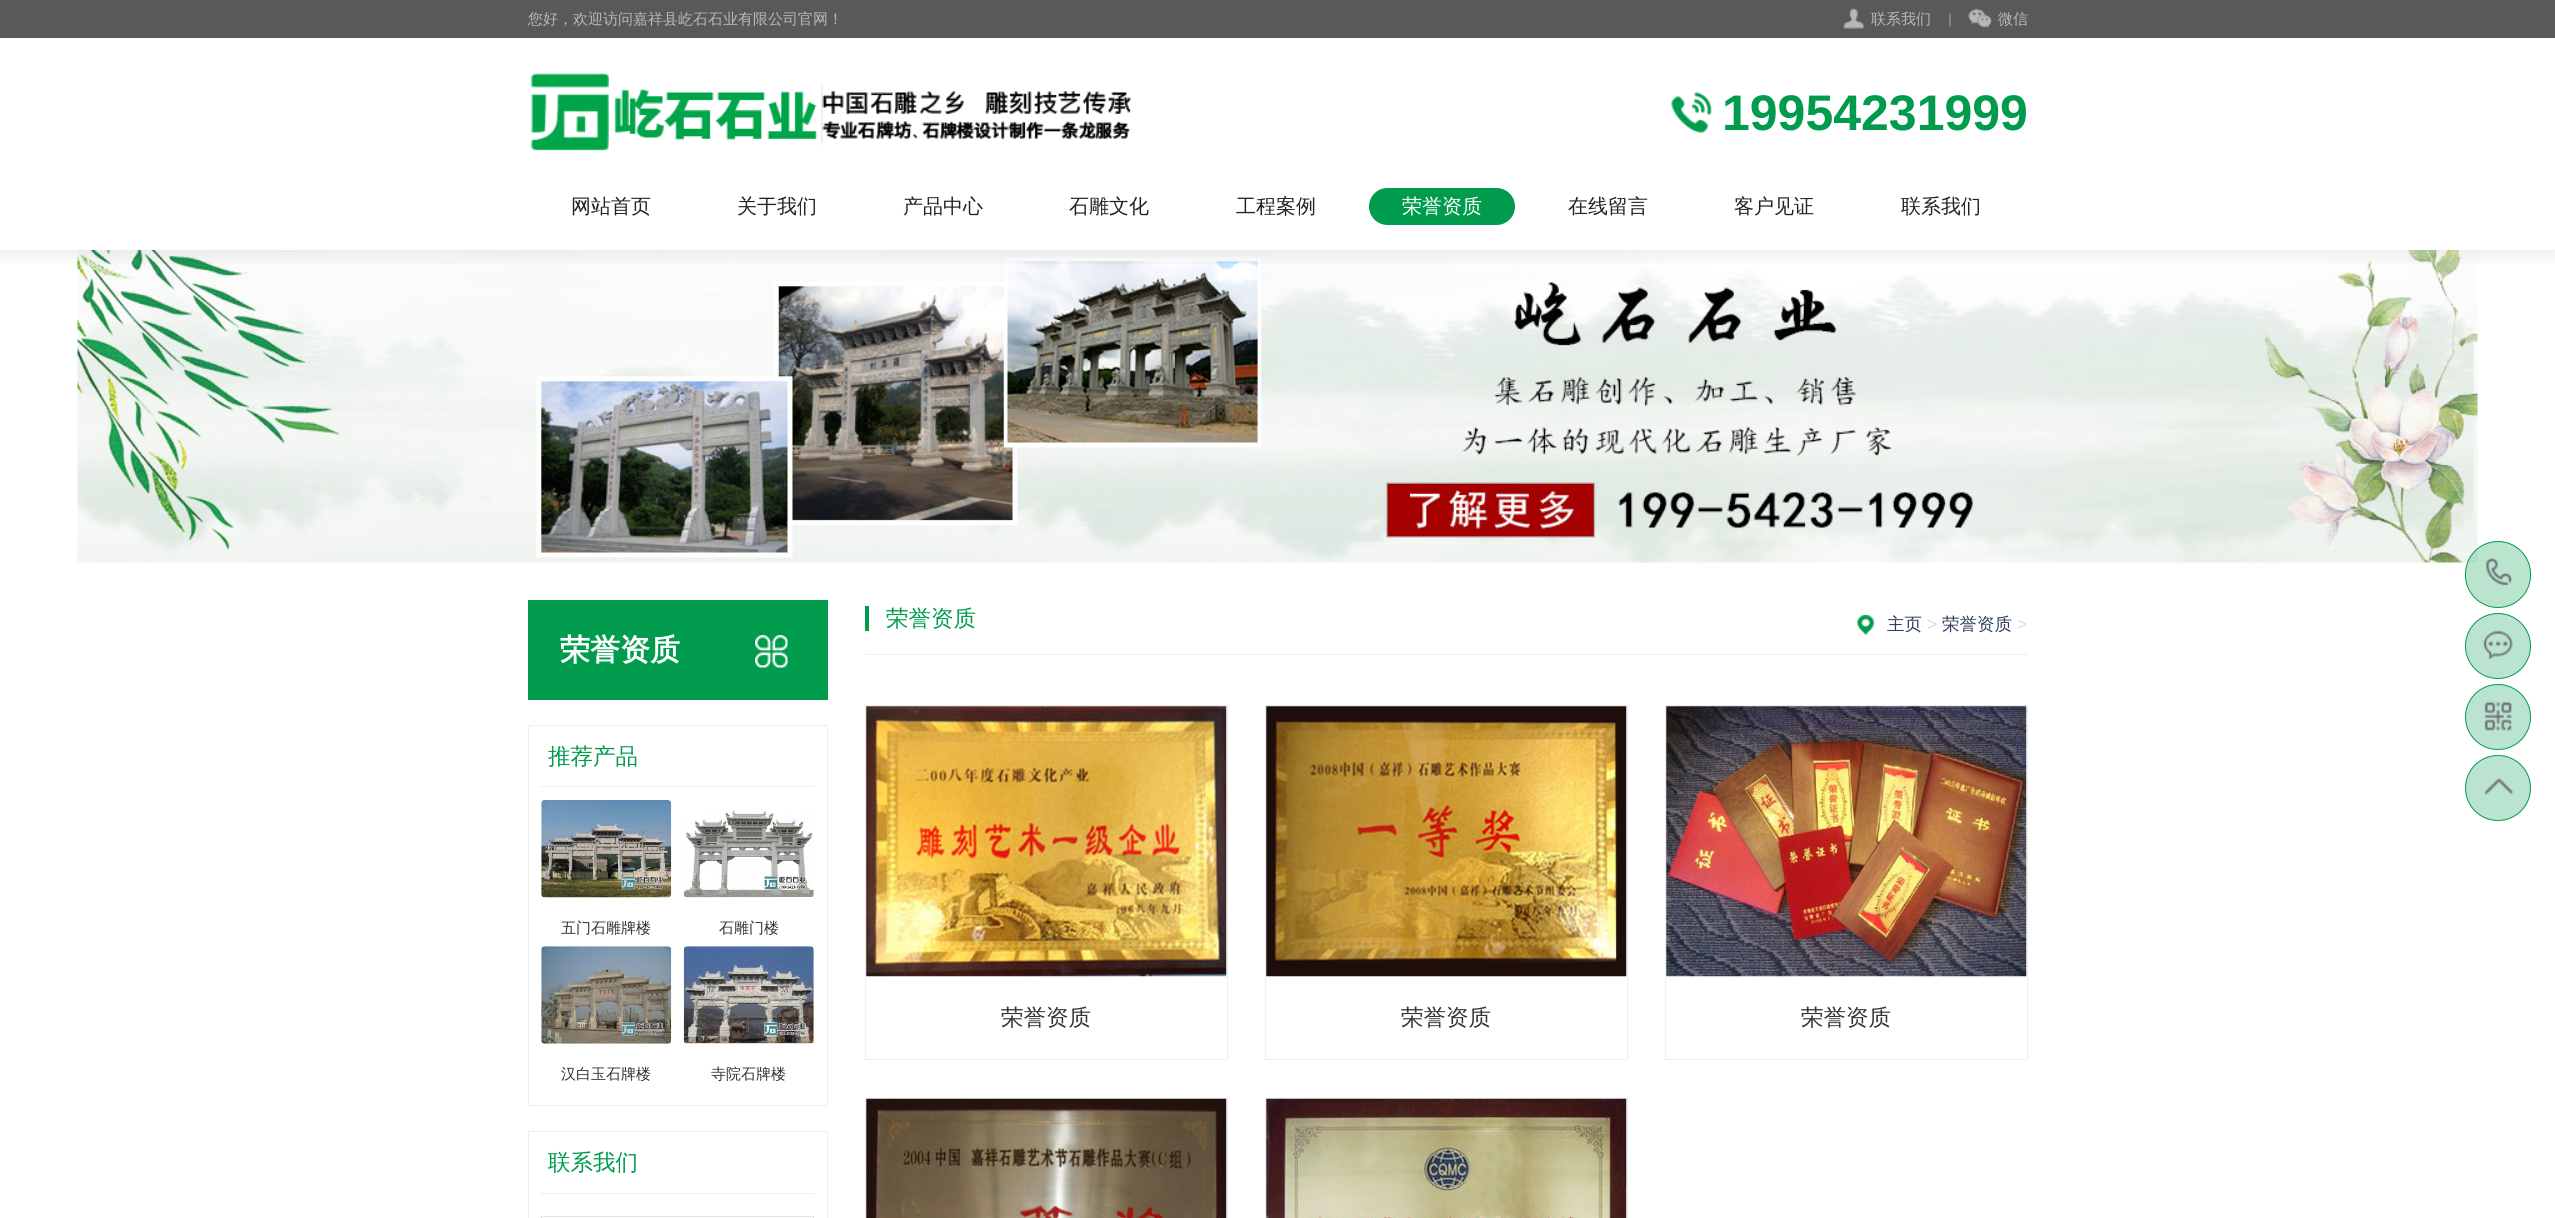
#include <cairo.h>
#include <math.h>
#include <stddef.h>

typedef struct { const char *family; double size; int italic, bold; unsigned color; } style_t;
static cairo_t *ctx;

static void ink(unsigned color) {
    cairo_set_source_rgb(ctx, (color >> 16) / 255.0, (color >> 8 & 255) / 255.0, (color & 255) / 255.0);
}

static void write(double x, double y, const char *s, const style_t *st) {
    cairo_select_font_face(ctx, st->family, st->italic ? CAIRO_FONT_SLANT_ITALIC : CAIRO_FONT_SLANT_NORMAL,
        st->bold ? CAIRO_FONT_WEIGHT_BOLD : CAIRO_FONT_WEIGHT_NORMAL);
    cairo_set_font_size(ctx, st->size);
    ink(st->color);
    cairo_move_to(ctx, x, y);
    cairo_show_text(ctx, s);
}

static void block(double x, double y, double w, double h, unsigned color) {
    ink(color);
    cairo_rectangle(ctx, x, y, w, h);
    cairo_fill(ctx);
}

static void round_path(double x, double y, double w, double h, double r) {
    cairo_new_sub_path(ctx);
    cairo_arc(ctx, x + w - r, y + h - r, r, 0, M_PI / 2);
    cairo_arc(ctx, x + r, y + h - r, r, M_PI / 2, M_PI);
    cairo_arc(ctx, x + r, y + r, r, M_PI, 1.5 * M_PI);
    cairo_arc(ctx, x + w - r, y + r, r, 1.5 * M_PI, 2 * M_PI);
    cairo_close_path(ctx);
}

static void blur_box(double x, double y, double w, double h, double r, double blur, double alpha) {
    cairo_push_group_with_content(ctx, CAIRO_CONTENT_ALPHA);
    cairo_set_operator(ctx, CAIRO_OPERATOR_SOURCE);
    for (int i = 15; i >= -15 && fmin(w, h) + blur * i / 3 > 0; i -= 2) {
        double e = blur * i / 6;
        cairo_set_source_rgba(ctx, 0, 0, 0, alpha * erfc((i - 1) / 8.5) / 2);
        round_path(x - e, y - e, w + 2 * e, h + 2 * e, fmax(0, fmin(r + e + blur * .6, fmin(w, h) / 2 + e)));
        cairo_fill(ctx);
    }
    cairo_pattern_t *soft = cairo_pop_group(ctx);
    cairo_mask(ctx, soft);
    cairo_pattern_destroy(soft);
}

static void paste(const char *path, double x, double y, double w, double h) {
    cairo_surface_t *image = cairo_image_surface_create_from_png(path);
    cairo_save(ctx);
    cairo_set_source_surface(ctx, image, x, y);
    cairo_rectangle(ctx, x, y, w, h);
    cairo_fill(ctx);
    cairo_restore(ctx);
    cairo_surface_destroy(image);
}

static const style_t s1 = {"WenQuanYi Zen Hei Medium", 15, 0, 0, 0xb8b8b8};
static const style_t s2 = {"Liberation Sans", 15, 0, 0, 0x999999};
static const style_t s3 = {"Liberation Sans", 50, 0, 1, 0x009b4c};
static const style_t s4 = {"WenQuanYi Zen Hei Medium", 20, 0, 0, 0x222222};
static const style_t s5 = {"WenQuanYi Zen Hei Medium", 20, 0, 0, 0xffffff};
static const style_t s6 = {"WenQuanYi Zen Hei", 30, 0, 1, 0xffffff};
static const style_t s7 = {"WenQuanYi Zen Hei Medium", 22.5, 0, 0, 0x009b4c};
static const style_t s8 = {"WenQuanYi Zen Hei Medium", 15, 0, 0, 0x333333};
static const style_t s9 = {"WenQuanYi Zen Hei Medium", 17.5, 0, 0, 0x2f4056};
static const style_t s10 = {"Liberation Sans", 17.5, 0, 0, 0xd9d9d9};
static const style_t s11 = {"WenQuanYi Zen Hei Medium", 22.5, 0, 0, 0x333333};

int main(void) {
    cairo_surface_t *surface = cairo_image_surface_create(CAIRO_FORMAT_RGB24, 2555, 1218);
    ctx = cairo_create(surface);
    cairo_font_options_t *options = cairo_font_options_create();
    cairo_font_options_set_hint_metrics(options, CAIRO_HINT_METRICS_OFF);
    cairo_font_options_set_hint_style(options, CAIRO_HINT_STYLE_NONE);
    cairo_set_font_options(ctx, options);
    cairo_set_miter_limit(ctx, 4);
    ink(0xffffff);
    cairo_paint(ctx);
    paste("pic5.png", 77, 250, 2401, 313);
    cairo_save(ctx);
    cairo_rectangle(ctx, 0, 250, 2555, 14);
    cairo_clip(ctx);
    ink(0x000000);
    blur_box(0, 40, 2555, 213, 0, 12.5, 0.1);
    cairo_restore(ctx);
    block(0, 0, 2555, 38, 0x595959);
    write(528, 24, "您好，欢迎访问嘉祥县屹石石业有限公司官网！", &s1);
    paste("pic1.png", 1843, 8, 21, 21);
    write(1871, 24, "联系我们", &s1);
    write(1948, 24, "|", &s2);
    paste("pic2.png", 1968, 8, 24, 20);
    write(1998, 24, "微信", &s1);
    paste("pic3.png", 531, 73, 601, 78);
    paste("pic4.png", 1671, 92, 41, 41);
    write(1722, 130, "19954231999", &s3);
    write(571, 213, "网站首页", &s4);
    write(737, 213, "关于我们", &s4);
    write(903, 213, "产品中心", &s4);
    write(1069, 213, "石雕文化", &s4);
    write(1236, 213, "工程案例", &s4);
    ink(0x009b4c);
    round_path(1369, 188, 146, 37, 18.5);
    cairo_fill(ctx);
    write(1402, 213, "荣誉资质", &s5);
    write(1568, 213, "在线留言", &s4);
    write(1734, 213, "客户见证", &s4);
    write(1901, 213, "联系我们", &s4);
    block(528, 600, 300, 100, 0x009b4c);
    write(560, 660, "荣誉资质", &s6);
    paste("pic6.png", 755, 635, 33, 33);
    cairo_rectangle(ctx, 528.5, 725.5, 299, 380);
    ink(0xeeeeee);
    cairo_set_line_width(ctx, 1);
    cairo_stroke(ctx);
    block(541, 786, 273, 1, 0xeeeeee);
    write(548, 764, "推荐产品", &s7);
    paste("pic7.png", 541, 800, 131, 98);
    write(561, 933, "五门石雕牌楼", &s8);
    paste("pic8.png", 683, 809, 131, 89);
    write(719, 933, "石雕门楼", &s8);
    paste("pic9.png", 541, 946, 131, 98);
    write(561, 1079, "汉白玉石牌楼", &s8);
    paste("pic10.png", 683, 946, 131, 98);
    write(711, 1079, "寺院石牌楼", &s8);
    cairo_rectangle(ctx, 528.5, 1131.5, 299, 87);
    ink(0xeeeeee);
    cairo_stroke(ctx);
    block(541, 1193, 273, 1, 0xeeeeee);
    write(548, 1170, "联系我们", &s7);
    cairo_rectangle(ctx, 541.5, 1216.5, 272, 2);
    ink(0xe5e5e5);
    cairo_stroke(ctx);
    block(865, 654, 1163, 1, 0xeeeeee);
    block(865, 606, 4, 25, 0x009b4c);
    write(886, 626, "荣誉资质", &s7);
    paste("pic11.png", 1857, 615, 17, 20);
    write(1887, 630, "主页", &s9);
    write(1927, 630, ">", &s10);
    write(1942, 630, "荣誉资质", &s9);
    write(2017, 630, ">", &s10);
    cairo_rectangle(ctx, 865.5, 705.5, 362, 354);
    ink(0xeeeeee);
    cairo_stroke(ctx);
    paste("pic12.png", 866, 706, 361, 271);
    write(1001, 1025, "荣誉资质", &s11);
    cairo_rectangle(ctx, 1265.5, 705.5, 362, 354);
    ink(0xeeeeee);
    cairo_stroke(ctx);
    paste("pic13.png", 1266, 706, 361, 271);
    write(1401, 1025, "荣誉资质", &s11);
    cairo_rectangle(ctx, 1665.5, 705.5, 362, 354);
    ink(0xeeeeee);
    cairo_stroke(ctx);
    paste("pic14.png", 1666, 706, 361, 271);
    write(1801, 1025, "荣誉资质", &s11);
    cairo_rectangle(ctx, 865.5, 1098.5, 362, 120);
    ink(0xeeeeee);
    cairo_stroke(ctx);
    paste("pic15.png", 866, 1098, 361, 120);
    cairo_rectangle(ctx, 1265.5, 1098.5, 362, 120);
    cairo_stroke(ctx);
    paste("pic16.png", 1266, 1098, 361, 120);
    cairo_set_source_rgba(ctx, 0, 0.608, 0.298, 0.27);
    round_path(2465.5, 541.5, 65, 66, 32.5);
    cairo_fill_preserve(ctx);
    ink(0x009b4c);
    cairo_stroke(ctx);
    paste("pic17.png", 2486, 558, 26, 28);
    ink(0xbae4cf);
    cairo_arc(ctx, 2498, 646, 32.5, 0, 2 * M_PI);
    cairo_fill_preserve(ctx);
    ink(0x009b4c);
    cairo_stroke(ctx);
    paste("pic18.png", 2483, 630, 30, 30);
    ink(0xbae4cf);
    cairo_arc(ctx, 2498, 717, 32.5, 0, 2 * M_PI);
    cairo_fill_preserve(ctx);
    ink(0x009b4c);
    cairo_stroke(ctx);
    paste("pic19.png", 2484, 701, 28, 30);
    ink(0xbae4cf);
    cairo_arc(ctx, 2498, 788, 32.5, 0, 2 * M_PI);
    cairo_fill_preserve(ctx);
    ink(0x009b4c);
    cairo_stroke(ctx);
    paste("pic20.png", 2484, 778, 29, 17);
    cairo_surface_write_to_png(surface, "screenshot.png");
    cairo_font_options_destroy(options);
    cairo_destroy(ctx);
    cairo_surface_destroy(surface);
    return 0;
}
